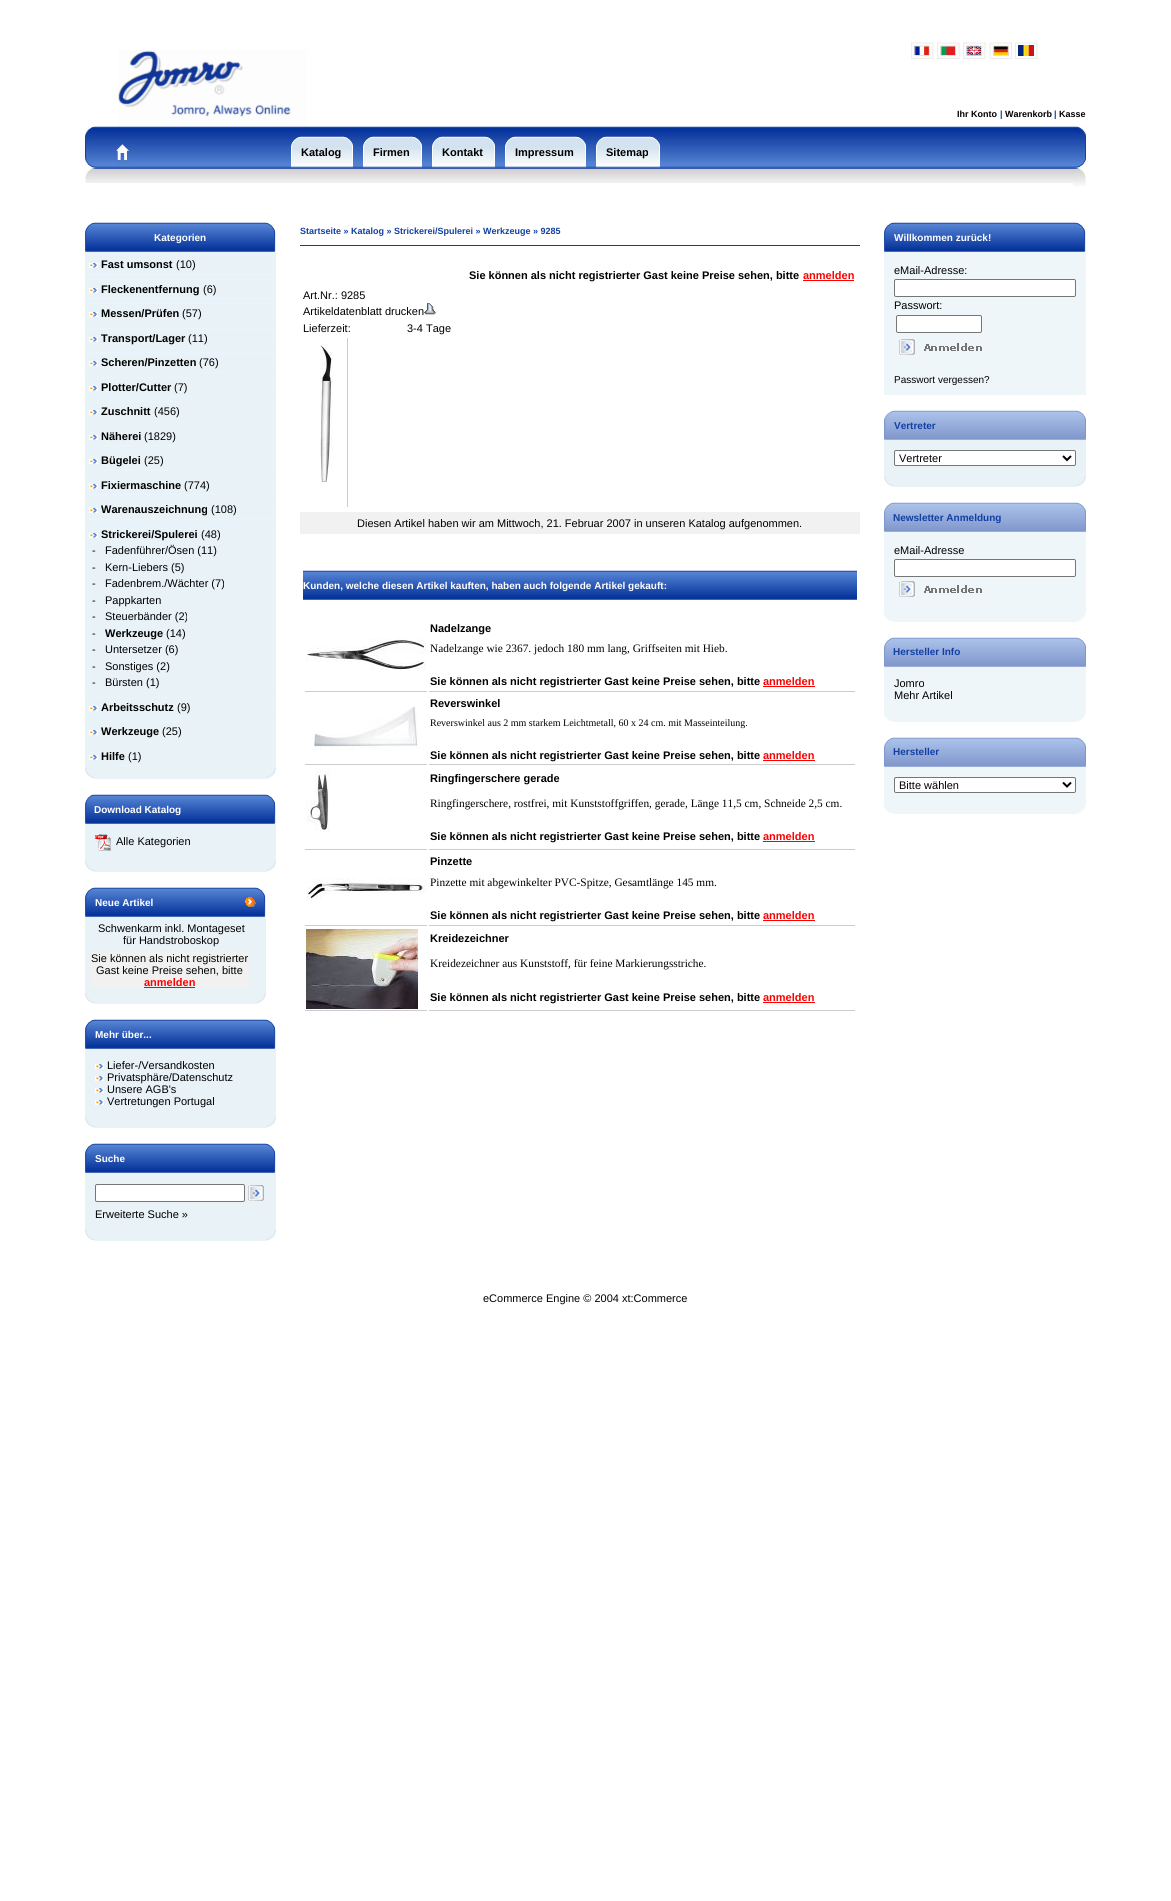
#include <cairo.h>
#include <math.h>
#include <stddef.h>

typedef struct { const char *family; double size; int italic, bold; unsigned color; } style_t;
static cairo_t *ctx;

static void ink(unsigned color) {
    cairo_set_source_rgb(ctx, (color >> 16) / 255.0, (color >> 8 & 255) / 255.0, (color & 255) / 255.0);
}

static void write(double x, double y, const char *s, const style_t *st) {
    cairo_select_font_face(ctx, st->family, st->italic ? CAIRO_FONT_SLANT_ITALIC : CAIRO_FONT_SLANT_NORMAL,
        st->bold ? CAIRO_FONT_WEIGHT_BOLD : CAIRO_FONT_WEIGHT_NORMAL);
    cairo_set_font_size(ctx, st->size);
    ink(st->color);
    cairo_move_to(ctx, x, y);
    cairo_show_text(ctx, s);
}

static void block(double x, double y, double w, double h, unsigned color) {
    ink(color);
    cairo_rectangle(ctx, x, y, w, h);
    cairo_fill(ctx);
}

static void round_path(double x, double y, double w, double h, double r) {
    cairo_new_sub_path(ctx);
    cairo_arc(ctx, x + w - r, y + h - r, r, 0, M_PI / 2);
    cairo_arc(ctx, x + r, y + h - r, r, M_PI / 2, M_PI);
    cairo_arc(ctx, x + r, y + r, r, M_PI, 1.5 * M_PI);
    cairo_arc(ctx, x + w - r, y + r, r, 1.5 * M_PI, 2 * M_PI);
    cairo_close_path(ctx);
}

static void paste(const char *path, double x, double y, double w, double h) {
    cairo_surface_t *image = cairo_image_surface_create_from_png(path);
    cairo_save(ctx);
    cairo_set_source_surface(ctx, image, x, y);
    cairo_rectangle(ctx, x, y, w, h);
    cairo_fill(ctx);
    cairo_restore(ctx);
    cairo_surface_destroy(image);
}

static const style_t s1 = {"Liberation Sans", 9, 0, 1, 0x000000};
static const style_t s2 = {"Liberation Sans", 9, 0, 1, 0x1240a2};
static const style_t s3 = {"Liberation Sans", 11, 0, 1, 0x000000};
static const style_t s4 = {"Liberation Sans", 10, 0, 1, 0xffffff};
static const style_t s5 = {"Liberation Sans", 11, 0, 0, 0x000000};
static const style_t s6 = {"Liberation Sans", 11, 0, 1, 0xff0000};
static const style_t s7 = {"Liberation Serif", 11.35, 0, 0, 0x000000};
static const style_t s8 = {"Liberation Serif", 10, 0, 0, 0x000000};
static const style_t s9 = {"Liberation Sans", 10, 0, 0, 0x000000};
static const style_t s10 = {"Liberation Sans", 10, 0, 1, 0x1240a2};

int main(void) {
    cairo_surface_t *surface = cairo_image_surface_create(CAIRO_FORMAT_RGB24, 1171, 1901);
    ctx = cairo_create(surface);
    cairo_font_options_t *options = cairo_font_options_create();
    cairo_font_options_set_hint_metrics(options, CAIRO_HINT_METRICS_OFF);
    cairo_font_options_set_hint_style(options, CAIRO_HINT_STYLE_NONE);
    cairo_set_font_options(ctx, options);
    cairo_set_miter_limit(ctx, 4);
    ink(0xffffff);
    cairo_paint(ctx);
    paste("pic1.png", 118, 50, 189, 76);
    paste("pic2.png", 911, 42, 23, 17);
    paste("pic3.png", 937, 42, 23, 17);
    paste("pic4.png", 963, 42, 23, 17);
    paste("pic5.png", 989, 42, 23, 17);
    paste("pic6.png", 1015, 42, 23, 17);
    write(957, 117, "Ihr Konto", &s1);
    write(1000, 117, "|", &s2);
    write(1005, 117, "Warenkorb", &s1);
    write(1054, 117, "|", &s2);
    write(1059, 117, "Kasse", &s1);
    paste("pic7.png", 85, 126, 10, 42);
    paste("pic8.png", 95, 126, 20, 42);
    paste("pic9.png", 115, 126, 15, 42);
    paste("pic10.png", 130, 126, 161, 42);
    paste("pic11.png", 291, 126, 782, 42);
    paste("pic12.png", 291, 136, 10, 32);
    paste("pic13.png", 301, 136, 40, 32);
    write(301, 156, "Katalog", &s3);
    paste("pic14.png", 341, 136, 12, 32);
    paste("pic12.png", 363, 136, 10, 32);
    paste("pic15.png", 373, 136, 37, 32);
    write(373, 156, "Firmen", &s3);
    paste("pic14.png", 410, 136, 12, 32);
    paste("pic12.png", 432, 136, 10, 32);
    paste("pic16.png", 442, 136, 41, 32);
    write(442, 156, "Kontakt", &s3);
    paste("pic14.png", 483, 136, 12, 32);
    paste("pic12.png", 505, 136, 10, 32);
    paste("pic17.png", 515, 136, 59, 32);
    write(515, 156, "Impressum", &s3);
    paste("pic14.png", 574, 136, 12, 32);
    paste("pic12.png", 596, 136, 10, 32);
    paste("pic18.png", 606, 136, 42, 32);
    write(606, 156, "Sitemap", &s3);
    paste("pic14.png", 648, 136, 12, 32);
    paste("pic19.png", 1073, 126, 13, 42);
    paste("pic20.png", 85, 168, 10, 15);
    paste("pic21.png", 95, 168, 978, 15);
    paste("pic22.png", 1073, 168, 13, 18);
    paste("pic23.png", 85, 222, 10, 30);
    paste("pic24.png", 95, 222, 171, 30);
    write(154, 241, "Kategorien", &s4);
    paste("pic25.png", 266, 222, 10, 30);
    block(85, 252, 191, 516, 0xe9f2f7);
    cairo_rectangle(ctx, 87.5, 254.5, 186, 20);
    ink(0xe9f4fc);
    cairo_set_line_width(ctx, 1);
    cairo_stroke(ctx);
    paste("pic26.png", 89, 263, 9, 5);
    write(101, 268, "Fast umsonst", &s3);
    write(176, 268, "(10)", &s5);
    cairo_rectangle(ctx, 87.5, 279.5, 186, 19);
    ink(0xe9f4fc);
    cairo_stroke(ctx);
    paste("pic26.png", 89, 288, 9, 5);
    write(101, 293, "Fleckenentfernung", &s3);
    write(203, 293, "(6)", &s5);
    cairo_rectangle(ctx, 87.5, 303.5, 186, 20);
    ink(0xe9f4fc);
    cairo_stroke(ctx);
    paste("pic26.png", 89, 312, 9, 5);
    write(101, 317, "Messen/Prüfen", &s3);
    write(182, 317, "(57)", &s5);
    cairo_rectangle(ctx, 87.5, 328.5, 186, 19);
    ink(0xe9f4fc);
    cairo_stroke(ctx);
    paste("pic26.png", 89, 337, 9, 5);
    write(101, 342, "Transport/Lager", &s3);
    write(188, 342, "(11)", &s5);
    cairo_rectangle(ctx, 87.5, 352.5, 186, 20);
    ink(0xe9f4fc);
    cairo_stroke(ctx);
    paste("pic26.png", 89, 361, 9, 5);
    write(101, 366, "Scheren/Pinzetten", &s3);
    write(199, 366, "(76)", &s5);
    cairo_rectangle(ctx, 87.5, 377.5, 186, 19);
    ink(0xe9f4fc);
    cairo_stroke(ctx);
    paste("pic26.png", 89, 386, 9, 5);
    write(101, 391, "Plotter/Cutter", &s3);
    write(174, 391, "(7)", &s5);
    cairo_rectangle(ctx, 87.5, 401.5, 186, 20);
    ink(0xe9f4fc);
    cairo_stroke(ctx);
    paste("pic26.png", 89, 410, 9, 5);
    write(101, 415, "Zuschnitt", &s3);
    write(154, 415, "(456)", &s5);
    cairo_rectangle(ctx, 87.5, 426.5, 186, 19);
    ink(0xe9f4fc);
    cairo_stroke(ctx);
    paste("pic26.png", 89, 435, 9, 5);
    write(101, 440, "Näherei", &s3);
    write(144, 440, "(1829)", &s5);
    cairo_rectangle(ctx, 87.5, 450.5, 186, 20);
    ink(0xe9f4fc);
    cairo_stroke(ctx);
    paste("pic26.png", 89, 459, 9, 5);
    write(101, 464, "Bügelei", &s3);
    write(144, 464, "(25)", &s5);
    cairo_rectangle(ctx, 87.5, 475.5, 186, 19);
    ink(0xe9f4fc);
    cairo_stroke(ctx);
    paste("pic26.png", 89, 484, 9, 5);
    write(101, 489, "Fixiermaschine", &s3);
    write(184, 489, "(774)", &s5);
    cairo_rectangle(ctx, 87.5, 499.5, 186, 20);
    ink(0xe9f4fc);
    cairo_stroke(ctx);
    paste("pic26.png", 89, 508, 9, 5);
    write(101, 513, "Warenauszeichnung", &s3);
    write(211, 513, "(108)", &s5);
    cairo_rectangle(ctx, 87.5, 524.5, 186, 168);
    ink(0xe9f4fc);
    cairo_stroke(ctx);
    paste("pic26.png", 89, 533, 9, 5);
    write(101, 538, "Strickerei/Spulerei", &s3);
    write(201, 538, "(48)", &s5);
    write(92, 554, "-", &s5);
    write(105, 554, "Fadenführer/Ösen (11)", &s5);
    write(92, 571, "-", &s5);
    write(105, 571, "Kern-Liebers (5)", &s5);
    write(92, 587, "-", &s5);
    write(105, 587, "Fadenbrem./Wächter (7)", &s5);
    write(92, 604, "-", &s5);
    write(105, 604, "Pappkarten", &s5);
    write(92, 620, "-", &s5);
    write(105, 620, "Steuerbänder (2)", &s5);
    write(92, 637, "-", &s5);
    write(105, 637, "Werkzeuge", &s3);
    write(166, 637, "(14)", &s5);
    write(92, 653, "-", &s5);
    write(105, 653, "Untersetzer (6)", &s5);
    write(92, 670, "-", &s5);
    write(105, 670, "Sonstiges (2)", &s5);
    write(92, 686, "-", &s5);
    write(105, 686, "Bürsten (1)", &s5);
    cairo_rectangle(ctx, 87.5, 697.5, 186, 19);
    ink(0xe9f4fc);
    cairo_stroke(ctx);
    paste("pic26.png", 89, 706, 9, 5);
    write(101, 711, "Arbeitsschutz", &s3);
    write(177, 711, "(9)", &s5);
    cairo_rectangle(ctx, 87.5, 721.5, 186, 20);
    ink(0xe9f4fc);
    cairo_stroke(ctx);
    paste("pic26.png", 89, 730, 9, 5);
    write(101, 735, "Werkzeuge", &s3);
    write(162, 735, "(25)", &s5);
    cairo_rectangle(ctx, 87.5, 746.5, 186, 19);
    ink(0xe9f4fc);
    cairo_stroke(ctx);
    paste("pic26.png", 89, 755, 9, 5);
    write(101, 760, "Hilfe", &s3);
    write(128, 760, "(1)", &s5);
    paste("pic27.png", 85, 768, 10, 11);
    block(95, 768, 171, 11, 0xe9f2f7);
    paste("pic28.png", 266, 768, 10, 11);
    paste("pic29.png", 94, 794, 172, 30);
    paste("pic30.png", 85, 794, 9, 30);
    write(94, 813, "Download Katalog", &s4);
    paste("pic25.png", 266, 794, 10, 30);
    block(85, 824, 191, 37, 0xe9f2f7);
    paste("pic31.png", 95, 834, 16, 17);
    write(116, 845, "Alle Kategorien", &s5);
    paste("pic27.png", 85, 861, 10, 11);
    block(95, 861, 171, 11, 0xe9f2f7);
    paste("pic28.png", 266, 861, 10, 11);
    paste("pic32.png", 94, 887, 162, 30);
    paste("pic33.png", 85, 887, 9, 30);
    write(95, 906, "Neue Artikel", &s4);
    paste("pic34.png", 245, 897, 11, 10);
    paste("pic25.png", 256, 887, 10, 30);
    block(85, 917, 181, 76, 0xe9f2f7);
    write(98, 932, "Schwenkarm inkl. Montageset", &s5);
    write(123, 944, "für Handstroboskop", &s5);
    block(90, 952, 159, 36, 0xf1f1f1);
    write(91, 962, "Sie können als nicht registrierter", &s5);
    write(96, 974, "Gast keine Preise sehen, bitte", &s5);
    write(144, 986, "anmelden", &s6);
    block(144, 987, 51, 1, 0xff0000);
    paste("pic27.png", 85, 993, 10, 11);
    block(95, 993, 161, 11, 0xe9f2f7);
    paste("pic35.png", 256, 993, 10, 11);
    paste("pic29.png", 94, 1019, 172, 30);
    paste("pic33.png", 85, 1019, 9, 30);
    write(95, 1038, "Mehr über...", &s4);
    paste("pic25.png", 266, 1019, 10, 30);
    block(85, 1049, 191, 68, 0xe9f2f7);
    paste("pic26.png", 95, 1064, 9, 5);
    write(107, 1069, "Liefer-/Versandkosten", &s5);
    paste("pic26.png", 95, 1076, 9, 5);
    write(107, 1081, "Privatsphäre/Datenschutz", &s5);
    paste("pic26.png", 95, 1088, 9, 5);
    write(107, 1093, "Unsere AGB's", &s5);
    paste("pic26.png", 95, 1100, 9, 5);
    write(107, 1105, "Vertretungen Portugal", &s5);
    paste("pic27.png", 85, 1117, 10, 11);
    block(95, 1117, 171, 11, 0xe9f2f7);
    paste("pic28.png", 266, 1117, 10, 11);
    paste("pic29.png", 94, 1143, 172, 30);
    paste("pic33.png", 85, 1143, 9, 30);
    write(95, 1162, "Suche", &s4);
    paste("pic25.png", 266, 1143, 10, 30);
    block(85, 1173, 191, 57, 0xe9f2f7);
    ink(0xffffff);
    round_path(95.5, 1184.5, 149, 17, 1.5);
    cairo_fill_preserve(ctx);
    ink(0x767676);
    cairo_stroke(ctx);
    paste("pic36.png", 248, 1185, 16, 16);
    write(95, 1218, "Erweiterte Suche »", &s5);
    paste("pic27.png", 85, 1230, 10, 11);
    block(95, 1230, 171, 11, 0xe9f2f7);
    paste("pic28.png", 266, 1230, 10, 11);
    write(300, 234, "Startseite » Katalog » Strickerei/Spulerei » Werkzeuge » 9285", &s2);
    block(300, 245, 560, 1, 0x123fa3);
    write(469, 279, "Sie können als nicht registrierter Gast keine Preise sehen, bitte", &s3);
    write(803, 279, "anmelden", &s6);
    block(803, 280, 51, 1, 0xff0000);
    write(303, 299, "Art.Nr.: 9285", &s5);
    write(303, 315, "Artikeldatenblatt drucken", &s5);
    paste("pic37.png", 424, 303, 12, 12);
    write(303, 332, "Lieferzeit:", &s5);
    write(407, 332, "3-4 Tage", &s5);
    block(347, 338, 1, 169, 0xcccccc);
    paste("pic38.png", 320, 344, 13, 140);
    block(300, 512, 560, 22, 0xf1f1f1);
    write(357, 527, "Diesen Artikel haben wir am Mittwoch, 21. Februar 2007 in unseren Katalog aufgenommen.", &s5);
    paste("pic39.png", 303, 570, 554, 30);
    write(303, 589, "Kunden, welche diesen Artikel kauften, haben auch folgende Artikel gekauft:", &s4);
    write(430, 632, "Nadelzange", &s3);
    block(305, 691, 122, 1, 0xcccccc);
    paste("pic40.png", 306, 638, 120, 32);
    block(429, 691, 426, 1, 0xcccccc);
    write(430, 652, "Nadelzange wie 2367. jedoch 180 mm lang, Griffseiten mit Hieb.", &s7);
    write(430, 685, "Sie können als nicht registrierter Gast keine Preise sehen, bitte", &s3);
    write(763, 685, "anmelden", &s6);
    block(763, 686, 52, 1, 0xff0000);
    write(430, 707, "Reverswinkel", &s3);
    block(305, 764, 122, 1, 0xcccccc);
    paste("pic41.png", 314, 706, 104, 44);
    block(429, 764, 426, 1, 0xcccccc);
    write(430, 726, "Reverswinkel aus 2 mm starkem Leichtmetall, 60 x 24 cm. mit Masseinteilung.", &s8);
    write(430, 759, "Sie können als nicht registrierter Gast keine Preise sehen, bitte", &s3);
    write(763, 759, "anmelden", &s6);
    block(763, 760, 52, 1, 0xff0000);
    block(305, 849, 122, 1, 0xcccccc);
    paste("pic42.png", 306, 768, 24, 64);
    write(430, 782, "Ringfingerschere gerade", &s3);
    block(429, 849, 426, 1, 0xcccccc);
    write(430, 807, "Ringfingerschere, rostfrei, mit Kunststoffgriffen, gerade, Länge 11,5 cm, Schneide 2,5 cm.", &s7);
    write(430, 840, "Sie können als nicht registrierter Gast keine Preise sehen, bitte", &s3);
    write(763, 840, "anmelden", &s6);
    block(763, 841, 52, 1, 0xff0000);
    write(430, 865, "Pinzette", &s3);
    block(305, 925, 122, 1, 0xcccccc);
    paste("pic43.png", 306, 878, 120, 22);
    block(429, 925, 426, 1, 0xcccccc);
    write(430, 886, "Pinzette mit abgewinkelter PVC-Spitze, Gesamtlänge 145 mm.", &s7);
    write(430, 919, "Sie können als nicht registrierter Gast keine Preise sehen, bitte", &s3);
    write(763, 919, "anmelden", &s6);
    block(763, 920, 52, 1, 0xff0000);
    block(305, 1010, 122, 1, 0xcccccc);
    paste("pic44.png", 306, 929, 112, 80);
    write(430, 942, "Kreidezeichner", &s3);
    block(429, 1010, 426, 1, 0xcccccc);
    write(430, 967, "Kreidezeichner aus Kunststoff, für feine Markierungsstriche.", &s7);
    write(430, 1001, "Sie können als nicht registrierter Gast keine Preise sehen, bitte", &s3);
    write(763, 1001, "anmelden", &s6);
    block(763, 1002, 52, 1, 0xff0000);
    paste("pic23.png", 884, 222, 10, 30);
    paste("pic45.png", 894, 222, 182, 30);
    write(894, 241, "Willkommen zurück!", &s4);
    paste("pic25.png", 1076, 222, 10, 30);
    block(884, 252, 202, 143, 0xeef6fa);
    write(894, 274, "eMail-Adresse:", &s5);
    ink(0xffffff);
    round_path(894.5, 279.5, 181, 17, 1.5);
    cairo_fill_preserve(ctx);
    ink(0x767676);
    cairo_stroke(ctx);
    write(894, 309, "Passwort:", &s5);
    ink(0xffffff);
    round_path(896.5, 315.5, 85, 17, 1.5);
    cairo_fill_preserve(ctx);
    ink(0x767676);
    cairo_stroke(ctx);
    paste("pic46.png", 899, 339, 83, 16);
    write(894, 383, "Passwort vergessen?", &s9);
    paste("pic47.png", 884, 410, 10, 30);
    paste("pic48.png", 894, 410, 182, 30);
    write(894, 429, "Vertreter", &s10);
    paste("pic49.png", 1076, 410, 10, 30);
    block(884, 440, 202, 36, 0xe9f2f7);
    ink(0xffffff);
    round_path(894.5, 450.5, 181, 15, 1.5);
    cairo_fill_preserve(ctx);
    ink(0x767676);
    cairo_stroke(ctx);
    cairo_new_path(ctx);
    cairo_move_to(ctx, 1063, 456);
    cairo_line_to(ctx, 1067, 460);
    cairo_line_to(ctx, 1071, 456);
    ink(0x000000);
    cairo_set_line_width(ctx, 2);
    cairo_stroke(ctx);
    write(899, 462, "Vertreter", &s5);
    paste("pic27.png", 884, 476, 10, 11);
    block(894, 476, 182, 11, 0xe9f2f7);
    paste("pic28.png", 1076, 476, 10, 11);
    paste("pic50.png", 884, 502, 9, 30);
    paste("pic51.png", 893, 502, 183, 30);
    write(893, 521, "Newsletter Anmeldung", &s10);
    paste("pic49.png", 1076, 502, 10, 30);
    block(884, 532, 202, 79, 0xeef6fa);
    write(894, 554, "eMail-Adresse", &s5);
    ink(0xffffff);
    round_path(894.5, 559.5, 181, 17, 1.5);
    cairo_fill_preserve(ctx);
    ink(0x767676);
    cairo_set_line_width(ctx, 1);
    cairo_stroke(ctx);
    paste("pic46.png", 899, 581, 83, 16);
    paste("pic52.png", 884, 611, 10, 11);
    block(894, 611, 182, 11, 0xeef6fa);
    paste("pic53.png", 1076, 611, 10, 11);
    paste("pic50.png", 884, 637, 9, 30);
    paste("pic51.png", 893, 637, 183, 30);
    write(893, 655, "Hersteller Info", &s10);
    paste("pic49.png", 1076, 637, 10, 30);
    block(884, 667, 202, 44, 0xeef6fa);
    write(894, 687, "Jomro", &s5);
    write(894, 699, "Mehr Artikel", &s5);
    paste("pic52.png", 884, 711, 10, 11);
    block(894, 711, 182, 11, 0xeef6fa);
    paste("pic53.png", 1076, 711, 10, 11);
    paste("pic50.png", 884, 737, 9, 30);
    paste("pic51.png", 893, 737, 183, 30);
    write(893, 755, "Hersteller", &s10);
    paste("pic49.png", 1076, 737, 10, 30);
    block(884, 767, 202, 36, 0xeef6fa);
    ink(0xffffff);
    round_path(894.5, 777.5, 181, 15, 1.5);
    cairo_fill_preserve(ctx);
    ink(0x767676);
    cairo_stroke(ctx);
    cairo_new_path(ctx);
    cairo_move_to(ctx, 1063, 782.5);
    cairo_line_to(ctx, 1067, 786.5);
    cairo_line_to(ctx, 1071, 782.5);
    ink(0x000000);
    cairo_set_line_width(ctx, 2);
    cairo_stroke(ctx);
    write(899, 789, "Bitte wählen", &s5);
    paste("pic52.png", 884, 803, 10, 11);
    block(894, 803, 182, 11, 0xeef6fa);
    paste("pic53.png", 1076, 803, 10, 11);
    write(483, 1302, "eCommerce Engine © 2004 xt:Commerce", &s5);
    cairo_surface_write_to_png(surface, "screenshot.png");
    cairo_font_options_destroy(options);
    cairo_destroy(ctx);
    cairo_surface_destroy(surface);
    return 0;
}
